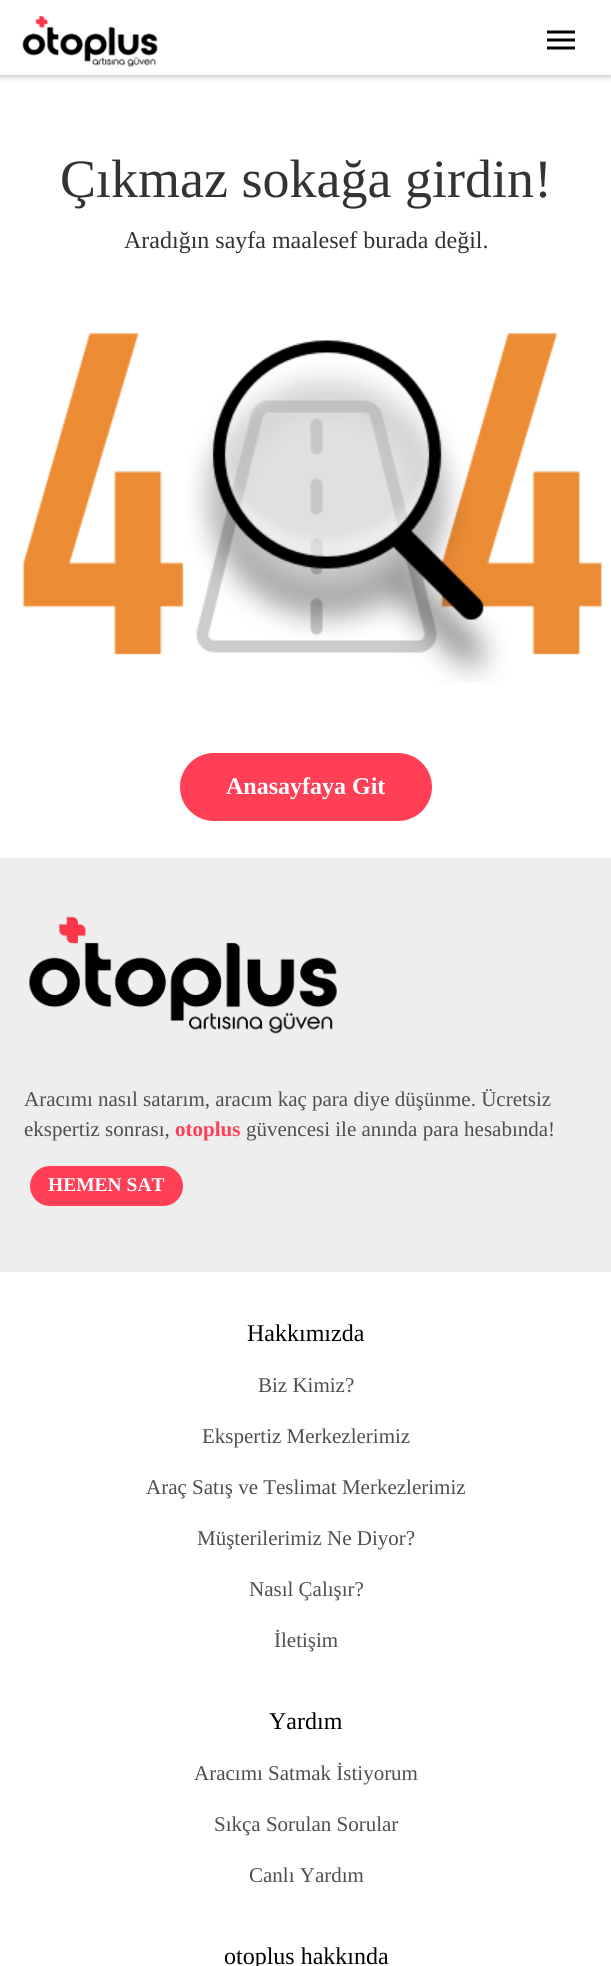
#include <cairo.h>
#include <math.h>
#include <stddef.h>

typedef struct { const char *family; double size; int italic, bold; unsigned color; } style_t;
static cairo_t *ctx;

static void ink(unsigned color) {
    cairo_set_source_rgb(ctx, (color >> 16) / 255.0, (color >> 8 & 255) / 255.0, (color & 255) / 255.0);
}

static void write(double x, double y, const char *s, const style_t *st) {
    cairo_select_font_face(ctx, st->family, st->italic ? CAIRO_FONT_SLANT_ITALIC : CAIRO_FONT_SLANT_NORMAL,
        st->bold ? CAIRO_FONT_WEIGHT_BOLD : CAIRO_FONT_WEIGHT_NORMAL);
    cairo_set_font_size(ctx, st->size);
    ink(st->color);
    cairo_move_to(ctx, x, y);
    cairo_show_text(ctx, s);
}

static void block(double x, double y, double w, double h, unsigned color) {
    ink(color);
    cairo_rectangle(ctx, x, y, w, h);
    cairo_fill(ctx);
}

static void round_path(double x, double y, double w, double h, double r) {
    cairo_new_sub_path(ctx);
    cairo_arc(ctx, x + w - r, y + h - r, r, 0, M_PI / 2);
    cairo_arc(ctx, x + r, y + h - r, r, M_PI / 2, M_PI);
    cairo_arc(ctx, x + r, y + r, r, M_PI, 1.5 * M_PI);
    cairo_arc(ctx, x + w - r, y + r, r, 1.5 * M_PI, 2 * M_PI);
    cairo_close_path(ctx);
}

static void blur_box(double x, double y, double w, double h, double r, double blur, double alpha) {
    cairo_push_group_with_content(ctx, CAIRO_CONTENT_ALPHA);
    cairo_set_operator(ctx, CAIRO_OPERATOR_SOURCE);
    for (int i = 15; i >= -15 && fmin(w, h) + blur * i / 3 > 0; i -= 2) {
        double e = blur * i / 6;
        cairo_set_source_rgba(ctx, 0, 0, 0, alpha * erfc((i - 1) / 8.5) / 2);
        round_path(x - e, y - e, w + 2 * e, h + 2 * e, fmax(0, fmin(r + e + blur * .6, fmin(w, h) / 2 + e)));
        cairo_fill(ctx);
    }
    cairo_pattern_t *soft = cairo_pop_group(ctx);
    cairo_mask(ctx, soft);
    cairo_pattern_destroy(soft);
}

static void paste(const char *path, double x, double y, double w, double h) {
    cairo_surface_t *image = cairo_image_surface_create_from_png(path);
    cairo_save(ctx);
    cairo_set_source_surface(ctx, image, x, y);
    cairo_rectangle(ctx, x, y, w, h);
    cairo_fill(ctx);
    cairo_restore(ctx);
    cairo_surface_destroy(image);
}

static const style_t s1 = {"Liberation Serif", 54, 0, 0, 0x333333};
static const style_t s2 = {"Liberation Serif", 24, 0, 0, 0x333333};
static const style_t s3 = {"Liberation Serif", 24, 0, 1, 0xffffff};
static const style_t s4 = {"Liberation Serif", 21, 0, 0, 0x4d4e4d};
static const style_t s5 = {"Liberation Serif", 21, 0, 1, 0xff3f55};
static const style_t s6 = {"Liberation Serif", 19.5, 0, 1, 0xffffff};
static const style_t s7 = {"Liberation Serif", 24, 0, 0, 0x000000};

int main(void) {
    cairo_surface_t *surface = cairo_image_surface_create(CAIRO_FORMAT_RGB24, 611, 1966);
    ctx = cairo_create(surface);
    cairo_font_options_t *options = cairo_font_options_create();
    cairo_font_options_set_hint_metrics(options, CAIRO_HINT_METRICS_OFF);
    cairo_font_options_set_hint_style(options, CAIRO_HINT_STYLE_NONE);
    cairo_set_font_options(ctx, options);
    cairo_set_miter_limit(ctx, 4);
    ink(0xffffff);
    cairo_paint(ctx);
    cairo_save(ctx);
    cairo_rectangle(ctx, 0, 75, 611, 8);
    cairo_clip(ctx);
    ink(0xaaaaaa);
    blur_box(0, 0, 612, 75, 0, 4, 1);
    cairo_restore(ctx);
    paste("pic1.png", 22, 16, 136, 51);
    paste("pic2.png", 547, 30, 28, 20);
    write(60, 197, "Çıkmaz sokağa girdin!", &s1);
    write(124, 248, "Aradığın sayfa maalesef burada değil.", &s2);
    paste("pic3.png", 22, 333, 580, 350);
    ink(0xff3f55);
    round_path(180, 753, 252, 68, 34);
    cairo_fill(ctx);
    write(226, 794, "Anasayfaya Git", &s3);
    block(0, 858, 611, 414, 0xeeeeee);
    paste("pic4.png", 29, 916, 308, 118);
    write(24, 1106, "Aracımı nasıl satarım, aracım kaç para diye düşünme. Ücretsiz", &s4);
    write(24, 1136, "ekspertiz sonrası,", &s4);
    write(175, 1136, "otoplus", &s5);
    write(246, 1136, "güvencesi ile anında para hesabında!", &s4);
    ink(0xff3f55);
    round_path(30, 1166, 153, 40, 20);
    cairo_fill(ctx);
    write(48, 1191, "HEMEN SAT", &s6);
    write(247, 1341, "Hakkımızda", &s7);
    write(258, 1392, "Biz Kimiz?", &s4);
    write(202, 1443, "Ekspertiz Merkezlerimiz", &s4);
    write(146, 1494, "Araç Satış ve Teslimat Merkezlerimiz", &s4);
    write(197, 1545, "Müşterilerimiz Ne Diyor?", &s4);
    write(249, 1596, "Nasıl Çalışır?", &s4);
    write(274, 1647, "İletişim", &s4);
    write(269, 1729, "Yardım", &s7);
    write(194, 1780, "Aracımı Satmak İstiyorum", &s4);
    write(214, 1831, "Sıkça Sorulan Sorular", &s4);
    write(249, 1882, "Canlı Yardım", &s4);
    write(224, 1964, "otoplus hakkında", &s7);
    cairo_surface_write_to_png(surface, "screenshot.png");
    cairo_font_options_destroy(options);
    cairo_destroy(ctx);
    cairo_surface_destroy(surface);
    return 0;
}
